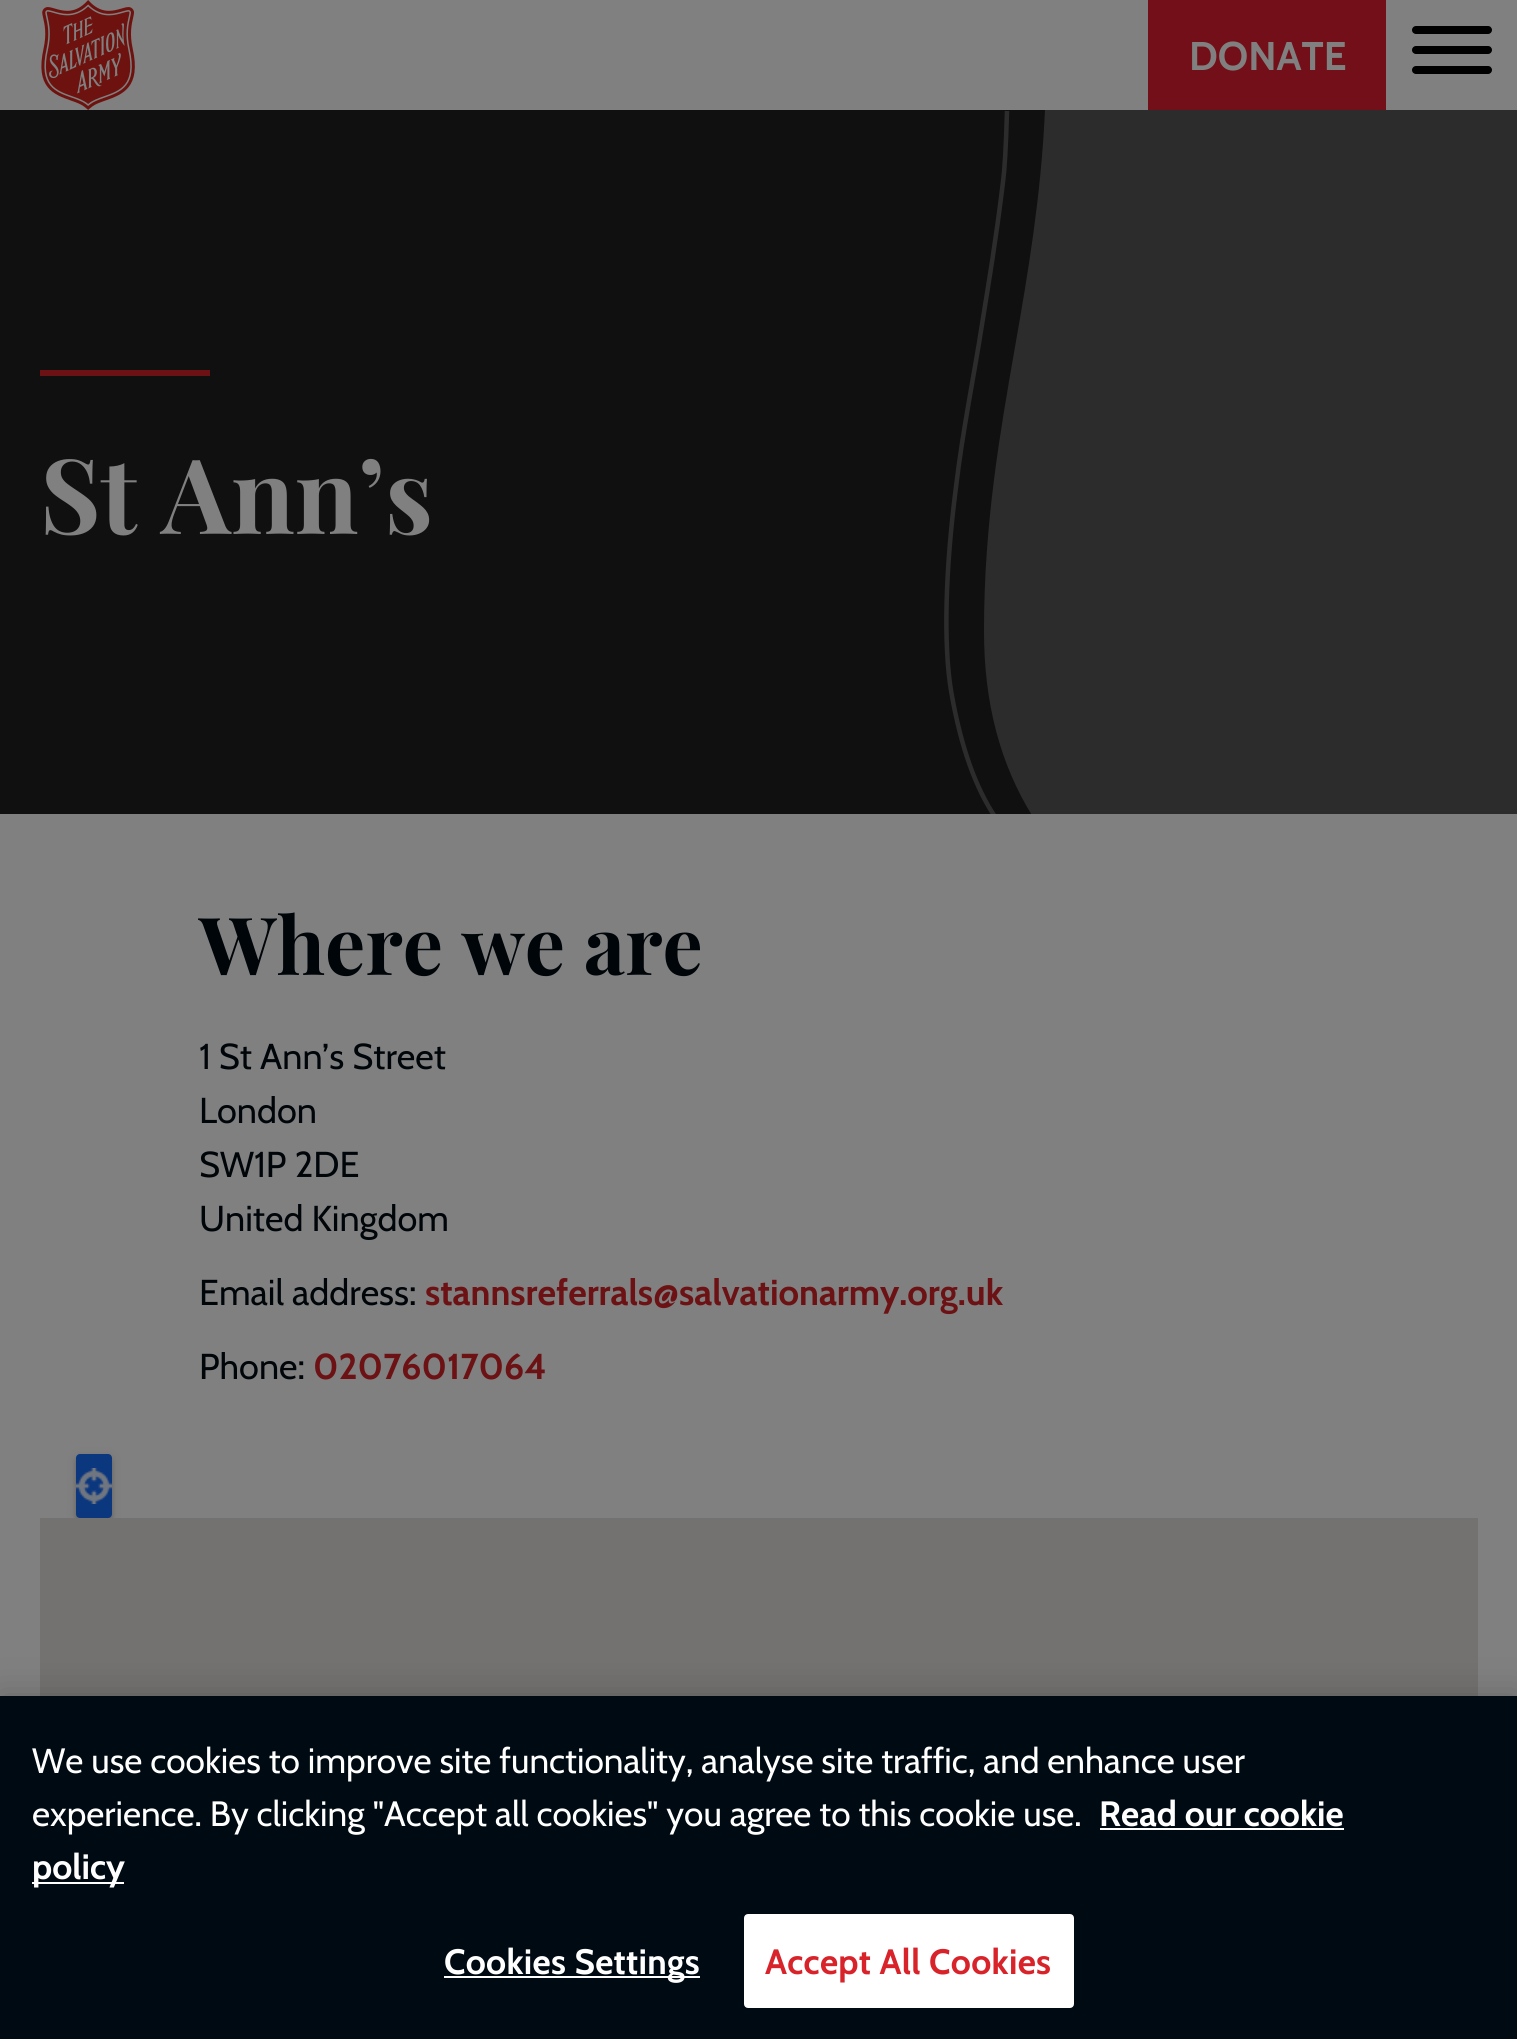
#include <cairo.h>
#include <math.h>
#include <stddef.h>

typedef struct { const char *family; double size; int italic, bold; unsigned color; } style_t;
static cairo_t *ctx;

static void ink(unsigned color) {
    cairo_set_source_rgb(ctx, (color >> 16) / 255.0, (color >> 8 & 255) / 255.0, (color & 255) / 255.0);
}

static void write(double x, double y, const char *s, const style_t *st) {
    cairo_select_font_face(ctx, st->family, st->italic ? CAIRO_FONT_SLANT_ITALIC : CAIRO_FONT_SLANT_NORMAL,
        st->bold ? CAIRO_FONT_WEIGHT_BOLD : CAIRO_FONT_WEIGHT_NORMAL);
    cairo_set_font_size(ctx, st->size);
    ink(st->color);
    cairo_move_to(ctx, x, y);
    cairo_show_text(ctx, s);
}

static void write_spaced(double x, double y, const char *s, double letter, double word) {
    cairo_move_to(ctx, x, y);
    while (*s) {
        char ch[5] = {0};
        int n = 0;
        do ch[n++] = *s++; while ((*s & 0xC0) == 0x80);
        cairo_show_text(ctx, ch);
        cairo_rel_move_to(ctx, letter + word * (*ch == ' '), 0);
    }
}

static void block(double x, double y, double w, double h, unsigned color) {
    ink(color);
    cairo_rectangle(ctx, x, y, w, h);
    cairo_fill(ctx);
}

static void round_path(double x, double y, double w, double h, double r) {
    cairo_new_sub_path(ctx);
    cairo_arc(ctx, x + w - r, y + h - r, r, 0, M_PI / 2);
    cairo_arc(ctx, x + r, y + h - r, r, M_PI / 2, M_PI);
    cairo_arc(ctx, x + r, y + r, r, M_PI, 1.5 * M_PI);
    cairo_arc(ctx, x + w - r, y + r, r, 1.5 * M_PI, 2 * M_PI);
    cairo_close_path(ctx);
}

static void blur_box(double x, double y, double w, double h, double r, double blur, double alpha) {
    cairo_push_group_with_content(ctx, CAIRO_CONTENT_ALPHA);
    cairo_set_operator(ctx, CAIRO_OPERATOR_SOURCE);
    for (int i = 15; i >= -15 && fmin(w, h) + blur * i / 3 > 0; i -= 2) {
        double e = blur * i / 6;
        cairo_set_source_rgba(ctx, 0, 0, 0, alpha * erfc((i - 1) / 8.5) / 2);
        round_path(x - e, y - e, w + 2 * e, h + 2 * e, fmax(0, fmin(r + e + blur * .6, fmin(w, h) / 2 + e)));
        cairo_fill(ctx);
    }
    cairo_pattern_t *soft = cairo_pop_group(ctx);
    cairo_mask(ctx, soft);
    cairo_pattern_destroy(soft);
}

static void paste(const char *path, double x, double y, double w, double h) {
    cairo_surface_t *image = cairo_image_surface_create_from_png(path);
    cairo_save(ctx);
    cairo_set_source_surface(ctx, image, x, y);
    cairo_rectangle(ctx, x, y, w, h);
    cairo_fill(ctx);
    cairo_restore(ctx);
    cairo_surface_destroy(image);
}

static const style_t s1 = {"Cabin", 40, 0, 1, 0x808080};
static const style_t s2 = {"Playfair Display", 104, 0, 1, 0x808080};
static const style_t s3 = {"Playfair Display", 80, 0, 1, 0x000509};
static const style_t s4 = {"Cabin", 36, 0, 0, 0x000509};
static const style_t s5 = {"Cabin", 36, 0, 1, 0x6c1215};
static const style_t s6 = {"Cabin", 35.2, 0, 0, 0xffffff};
static const style_t s7 = {"Cabin", 35.2, 0, 1, 0xffffff};

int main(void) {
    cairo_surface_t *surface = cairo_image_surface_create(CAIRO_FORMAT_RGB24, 1517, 2039);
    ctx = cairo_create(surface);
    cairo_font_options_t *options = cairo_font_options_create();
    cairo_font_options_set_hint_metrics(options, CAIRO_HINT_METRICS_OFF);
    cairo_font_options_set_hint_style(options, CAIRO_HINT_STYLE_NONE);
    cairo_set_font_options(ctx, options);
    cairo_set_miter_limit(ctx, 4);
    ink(0x808080);
    cairo_paint(ctx);
    paste("pic1.png", 41, 0, 94, 110);
    block(1148, 0, 238, 110, 0x720f18);
    write(1189, 70, "DONATE", &s1);
    ink(0x000000);
    round_path(1412, 46, 80, 8, 4);
    cairo_fill(ctx);
    round_path(1412, 26, 80, 8, 4);
    cairo_fill(ctx);
    round_path(1412, 66, 80, 8, 4);
    cairo_fill(ctx);
    block(0, 110, 1045, 704, 0x101010);
    block(1216, 110, 301, 704, 0x2c2c2c);
    block(40, 370, 170, 6, 0x6c1215);
    write(40, 534, "St Ann’s", &s2);
    cairo_save(ctx);
    cairo_rectangle(ctx, 944, 110, 272, 704);
    cairo_clip(ctx);
    ink(0x2c2c2c);
    cairo_set_fill_rule(ctx, CAIRO_FILL_RULE_EVEN_ODD);
    cairo_new_path(ctx);
    cairo_move_to(ctx, 1216, 817);
    cairo_line_to(ctx, 1033, 817);
    cairo_curve_to(ctx, 1000, 764, 984, 703, 984, 631);
    cairo_curve_to(ctx, 984, 523, 1000, 433, 1015, 347);
    cairo_curve_to(ctx, 1028, 273, 1041, 197, 1045, 110);
    cairo_line_to(ctx, 1216, 110);
    cairo_close_path(ctx);
    cairo_fill(ctx);
    cairo_new_path(ctx);
    cairo_move_to(ctx, 1007, 111);
    cairo_curve_to(ctx, 1006, 147.5, 1004.5, 171, 1003, 182);
    cairo_curve_to(ctx, 995.5, 243.5, 989, 280.5, 982, 324.5);
    cairo_curve_to(ctx, 974.5, 373, 962.5, 431.5, 956, 487);
    cairo_curve_to(ctx, 945.5, 568, 943, 645.5, 951.5, 693.5);
    cairo_curve_to(ctx, 961, 747, 975.5, 788, 995.5, 817.5);
    cairo_set_line_width(ctx, 4.5);
    cairo_stroke(ctx);
    cairo_restore(ctx);
    write(199, 975, "Where we are", &s3);
    write(199, 1069, "1 St Ann’s Street", &s4);
    write(199, 1123, "London", &s4);
    write(199, 1177, "SW1P 2DE", &s4);
    write(199, 1231, "United Kingdom", &s4);
    write(199, 1305, "Email address:", &s4);
    write(425, 1305, "stannsreferrals@salvationarmy.org.uk", &s5);
    write(199, 1379, "Phone:", &s4);
    write(313, 1379, "02076017064", &s5);
    ink(0x000000);
    blur_box(76, 1456, 36, 64, 4, 5, 0.12);
    blur_box(76, 1458, 36, 64, 4, 2, 0.14);
    ink(0x0b377f);
    round_path(76, 1454, 36, 64, 4);
    cairo_fill(ctx);
    paste("pic2.png", 76, 1468, 36, 36);
    block(40, 1518, 1438, 178, 0x737270);
    ink(0x000000);
    blur_box(0, 1696, 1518, 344, 0, 18, 0.2);
    block(0, 1696, 1517, 343, 0x000a12);
    write(32, 1773, "We use cookies to improve site functionality, analyse site traffic, and enhance user", &s6);
    write(32, 1826, "experience. By clicking \"Accept all cookies\" you agree to this cookie use.", &s6);
    write(1099, 1826, "Read our cookie", &s7);
    block(1100, 1828, 244, 2, 0xffffff);
    block(32, 1882, 92, 2, 0xffffff);
    write(32, 1879, "policy", &s7);
    block(444, 1976, 256, 2, 0xffffff);
    write_spaced(444, 1974, "Cookies Settings", 0.3, 0);
    round_path(745, 1915, 328, 92, 3);
    cairo_fill_preserve(ctx);
    cairo_stroke(ctx);
    ink(0xd8232a);
    write_spaced(765, 1974, "Accept All Cookies", 0.3, 0);
    cairo_surface_write_to_png(surface, "screenshot.png");
    cairo_font_options_destroy(options);
    cairo_destroy(ctx);
    cairo_surface_destroy(surface);
    return 0;
}
